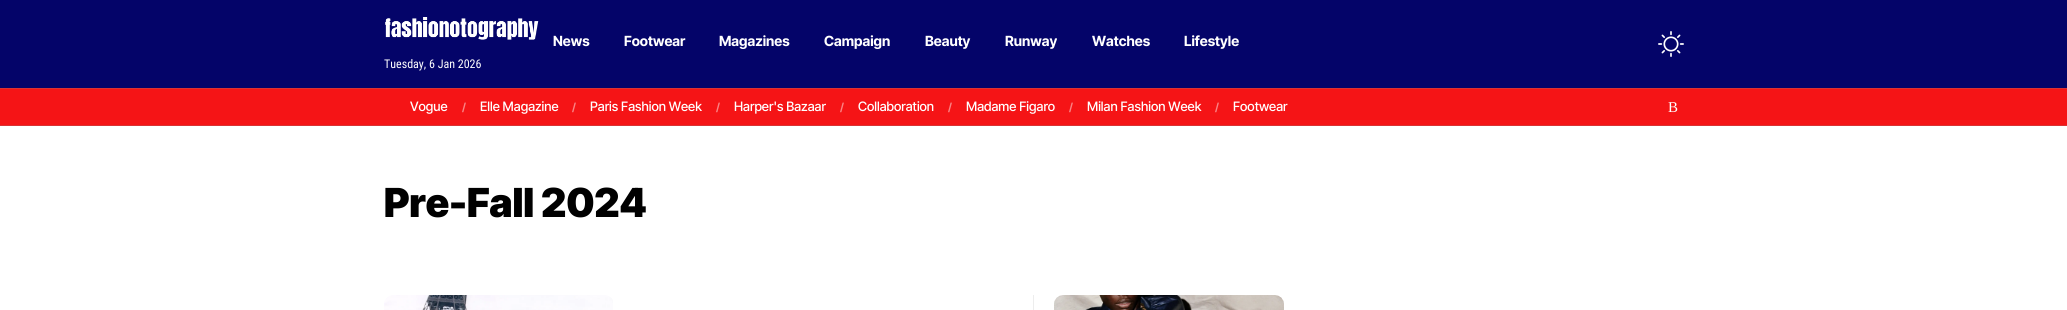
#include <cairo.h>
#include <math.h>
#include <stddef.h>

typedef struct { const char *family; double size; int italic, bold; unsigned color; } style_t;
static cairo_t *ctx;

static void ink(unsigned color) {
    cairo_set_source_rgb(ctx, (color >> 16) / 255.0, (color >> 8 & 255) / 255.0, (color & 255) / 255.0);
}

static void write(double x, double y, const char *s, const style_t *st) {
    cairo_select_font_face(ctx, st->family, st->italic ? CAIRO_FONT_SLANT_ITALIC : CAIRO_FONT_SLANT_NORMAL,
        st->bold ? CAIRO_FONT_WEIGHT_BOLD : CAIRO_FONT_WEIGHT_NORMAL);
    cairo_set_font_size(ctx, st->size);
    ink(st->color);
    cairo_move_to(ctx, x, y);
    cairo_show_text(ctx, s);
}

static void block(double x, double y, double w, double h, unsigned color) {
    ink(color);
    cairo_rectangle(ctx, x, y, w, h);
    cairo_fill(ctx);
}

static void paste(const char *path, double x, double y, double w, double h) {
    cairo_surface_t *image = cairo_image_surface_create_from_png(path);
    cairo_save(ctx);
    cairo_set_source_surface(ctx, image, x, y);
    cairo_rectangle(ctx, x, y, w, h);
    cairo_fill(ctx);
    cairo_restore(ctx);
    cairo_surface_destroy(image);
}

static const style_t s1 = {"Inter Tight", 14, 0, 1, 0xffffff};
static const style_t s2 = {"Roboto Condensed", 12, 0, 0, 0xffffff};
static const style_t s3 = {"Inter Tight Medium", 13, 0, 0, 0xffffff};
static const style_t s4 = {"Inter Tight", 11, 0, 1, 0xfa8283};
static const style_t s5 = {"Liberation Serif", 15, 0, 0, 0xffffff};
static const style_t s6 = {"Inter Tight Black", 40, 0, 0, 0x000000};

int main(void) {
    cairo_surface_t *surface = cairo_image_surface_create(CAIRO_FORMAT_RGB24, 2067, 310);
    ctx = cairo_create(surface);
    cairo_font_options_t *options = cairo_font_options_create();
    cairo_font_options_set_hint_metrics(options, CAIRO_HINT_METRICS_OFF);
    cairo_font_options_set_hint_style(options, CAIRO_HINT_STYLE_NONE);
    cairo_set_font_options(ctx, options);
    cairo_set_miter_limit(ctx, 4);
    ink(0xffffff);
    cairo_paint(ctx);
    block(0, 0, 2067, 88, 0x040469);
    write(553, 46, "News", &s1);
    write(624, 46, "Footwear", &s1);
    write(719, 46, "Magazines", &s1);
    write(824, 46, "Campaign", &s1);
    write(925, 46, "Beauty", &s1);
    write(1005, 46, "Runway", &s1);
    write(1092, 46, "Watches", &s1);
    write(1184, 46, "Lifestyle", &s1);
    paste("pic1.png", 385, 17, 154, 23);
    write(384, 68, "Tuesday, 6 Jan 2026", &s2);
    paste("pic2.png", 1658, 31, 26, 26);
    block(0, 89, 2067, 36, 0xf51416);
    block(0, 88, 2067, 1, 0xd83334);
    block(0, 125, 2067, 1, 0xd83334);
    write(410, 111, "Vogue", &s3);
    write(462, 111, "/", &s4);
    write(480, 111, "Elle Magazine", &s3);
    write(572, 111, "/", &s4);
    write(590, 111, "Paris Fashion Week", &s3);
    write(716, 111, "/", &s4);
    write(734, 111, "Harper's Bazaar", &s3);
    write(840, 111, "/", &s4);
    write(858, 111, "Collaboration", &s3);
    write(948, 111, "/", &s4);
    write(966, 111, "Madame Figaro", &s3);
    write(1069, 111, "/", &s4);
    write(1087, 111, "Milan Fashion Week", &s3);
    write(1215, 111, "/", &s4);
    write(1233, 111, "Footwear", &s3);
    write(1668, 112, "B", &s5);
    write(384, 217, "Pre-Fall 2024", &s6);
    paste("pic3.png", 384, 295, 229, 15);
    block(1033, 295, 1, 15, 0xededed);
    paste("pic4.png", 1054, 295, 230, 15);
    cairo_surface_write_to_png(surface, "screenshot.png");
    cairo_font_options_destroy(options);
    cairo_destroy(ctx);
    cairo_surface_destroy(surface);
    return 0;
}
